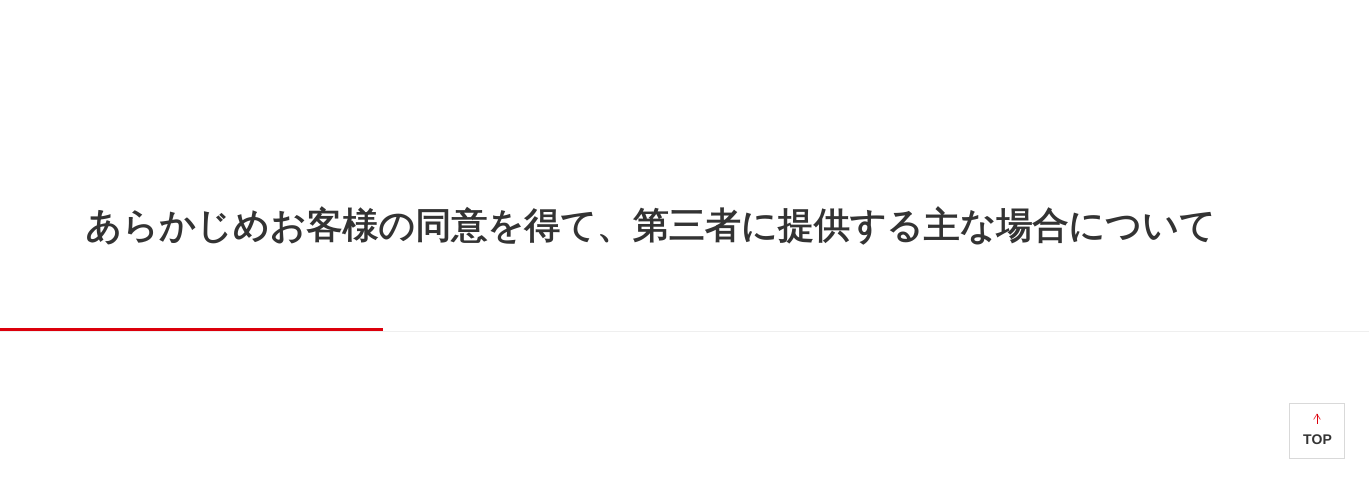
#include <cairo.h>
#include <math.h>
#include <stddef.h>

typedef struct { const char *family; double size; int italic, bold; unsigned color; } style_t;
static cairo_t *ctx;

static void ink(unsigned color) {
    cairo_set_source_rgb(ctx, (color >> 16) / 255.0, (color >> 8 & 255) / 255.0, (color & 255) / 255.0);
}

static void write(double x, double y, const char *s, const style_t *st) {
    cairo_select_font_face(ctx, st->family, st->italic ? CAIRO_FONT_SLANT_ITALIC : CAIRO_FONT_SLANT_NORMAL,
        st->bold ? CAIRO_FONT_WEIGHT_BOLD : CAIRO_FONT_WEIGHT_NORMAL);
    cairo_set_font_size(ctx, st->size);
    ink(st->color);
    cairo_move_to(ctx, x, y);
    cairo_show_text(ctx, s);
}

static void block(double x, double y, double w, double h, unsigned color) {
    ink(color);
    cairo_rectangle(ctx, x, y, w, h);
    cairo_fill(ctx);
}

static void paste(const char *path, double x, double y, double w, double h) {
    cairo_surface_t *image = cairo_image_surface_create_from_png(path);
    cairo_save(ctx);
    cairo_set_source_surface(ctx, image, x, y);
    cairo_rectangle(ctx, x, y, w, h);
    cairo_fill(ctx);
    cairo_restore(ctx);
    cairo_surface_destroy(image);
}

static const style_t s1 = {"WenQuanYi Zen Hei", 36, 0, 1, 0x333333};
static const style_t s2 = {"Liberation Sans", 14, 0, 1, 0x333333};

int main(void) {
    cairo_surface_t *surface = cairo_image_surface_create(CAIRO_FORMAT_RGB24, 1369, 483);
    ctx = cairo_create(surface);
    cairo_font_options_t *options = cairo_font_options_create();
    cairo_font_options_set_hint_metrics(options, CAIRO_HINT_METRICS_OFF);
    cairo_font_options_set_hint_style(options, CAIRO_HINT_STYLE_NONE);
    cairo_set_font_options(ctx, options);
    cairo_set_miter_limit(ctx, 4);
    ink(0xffffff);
    cairo_paint(ctx);
    block(0, 331, 1369, 1, 0xefefef);
    write(85, 238, "あらかじめお客様の同意を得て、第三者に提供する主な場合について", &s1);
    block(0, 328, 383, 3, 0xdc000c);
    cairo_rectangle(ctx, 1289.5, 403.5, 55, 55);
    ink(0xd9d9d9);
    cairo_set_line_width(ctx, 1);
    cairo_stroke(ctx);
    paste("pic1.png", 1313, 413, 8, 11);
    write(1303, 444, "TOP", &s2);
    cairo_surface_write_to_png(surface, "screenshot.png");
    cairo_font_options_destroy(options);
    cairo_destroy(ctx);
    cairo_surface_destroy(surface);
    return 0;
}
